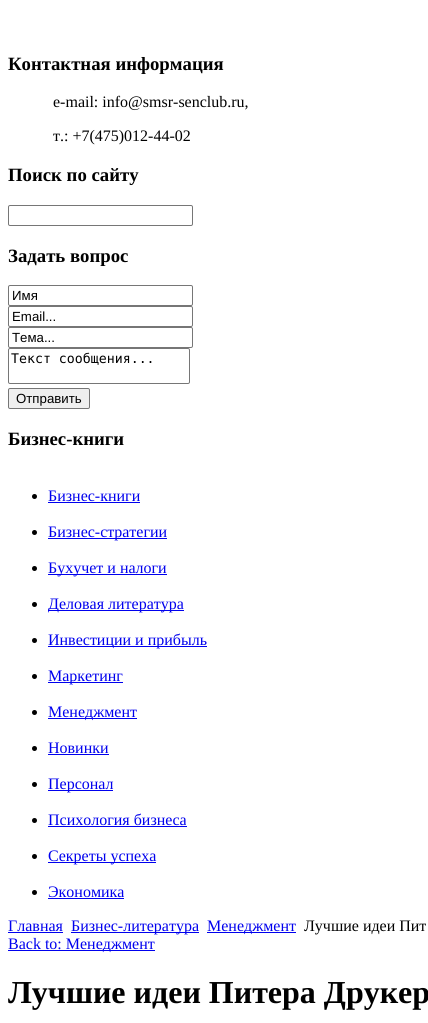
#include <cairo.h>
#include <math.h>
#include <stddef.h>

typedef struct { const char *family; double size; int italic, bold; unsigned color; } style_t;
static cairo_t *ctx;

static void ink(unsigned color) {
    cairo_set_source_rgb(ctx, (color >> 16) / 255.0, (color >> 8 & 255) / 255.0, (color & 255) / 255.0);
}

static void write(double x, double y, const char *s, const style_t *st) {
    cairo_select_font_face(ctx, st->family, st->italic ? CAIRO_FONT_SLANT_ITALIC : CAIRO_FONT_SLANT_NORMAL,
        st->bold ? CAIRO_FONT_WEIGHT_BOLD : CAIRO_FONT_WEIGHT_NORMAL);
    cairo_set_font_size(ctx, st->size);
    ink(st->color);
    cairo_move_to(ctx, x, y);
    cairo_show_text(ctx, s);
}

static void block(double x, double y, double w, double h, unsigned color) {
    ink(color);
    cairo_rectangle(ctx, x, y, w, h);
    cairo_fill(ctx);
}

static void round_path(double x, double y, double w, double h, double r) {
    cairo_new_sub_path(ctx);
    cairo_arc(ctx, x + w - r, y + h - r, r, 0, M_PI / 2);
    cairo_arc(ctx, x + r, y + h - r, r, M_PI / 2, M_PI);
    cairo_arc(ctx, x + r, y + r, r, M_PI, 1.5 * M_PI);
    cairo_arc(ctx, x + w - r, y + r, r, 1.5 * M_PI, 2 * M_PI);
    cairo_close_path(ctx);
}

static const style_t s1 = {"Liberation Serif", 18.75, 0, 1, 0x000000};
static const style_t s2 = {"Liberation Serif", 16, 0, 0, 0x000000};
static const style_t s3 = {"Liberation Sans", 13.25, 0, 0, 0x000000};
static const style_t s4 = {"DejaVu Sans Mono", 13.25, 0, 0, 0x000000};
static const style_t s5 = {"Liberation Serif", 16, 0, 0, 0x0000ee};
static const style_t s6 = {"Liberation Serif", 32, 0, 1, 0x000000};

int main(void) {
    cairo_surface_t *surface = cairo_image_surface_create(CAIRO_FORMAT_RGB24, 428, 1023);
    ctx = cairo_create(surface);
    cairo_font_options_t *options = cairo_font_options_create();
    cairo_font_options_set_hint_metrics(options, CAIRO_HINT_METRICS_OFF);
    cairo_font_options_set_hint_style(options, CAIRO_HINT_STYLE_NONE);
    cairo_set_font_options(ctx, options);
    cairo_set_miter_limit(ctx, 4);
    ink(0xffffff);
    cairo_paint(ctx);
    write(8, 70, "Контактная информация", &s1);
    write(53, 107, "e-mail: info@smsr-senclub.ru,", &s2);
    write(53, 141, "т.: +7(475)012-44-02", &s2);
    write(8, 181, "Поиск по сайту", &s1);
    round_path(8.5, 205.5, 184, 20, 1.5);
    ink(0x767676);
    cairo_set_line_width(ctx, 1);
    cairo_stroke(ctx);
    write(8, 262, "Задать вопрос", &s1);
    round_path(8.5, 285.5, 184, 20, 1.5);
    ink(0x767676);
    cairo_stroke(ctx);
    write(12, 300, "Имя", &s3);
    round_path(8.5, 306.5, 184, 20, 1.5);
    ink(0x767676);
    cairo_stroke(ctx);
    write(12, 321, "Email...", &s3);
    round_path(8.5, 327.5, 184, 20, 1.5);
    ink(0x767676);
    cairo_stroke(ctx);
    write(12, 342, "Тема...", &s3);
    round_path(8.5, 348.5, 181, 35, 1.5);
    ink(0x767676);
    cairo_stroke(ctx);
    write(11, 363, "Текст сообщения...", &s4);
    ink(0xefefef);
    round_path(8.5, 388.5, 81, 20, 1.5);
    cairo_fill_preserve(ctx);
    ink(0x767676);
    cairo_stroke(ctx);
    write(16, 403, "Отправить", &s3);
    write(8, 445, "Бизнес-книги", &s1);
    cairo_new_path(ctx);
    cairo_arc(ctx, 34.5, 496.5, 2.5, 0, 2 * M_PI);
    cairo_fill(ctx);
    write(48, 501, "Бизнес-книги", &s5);
    block(48, 502, 92, 1, 0x0000ee);
    ink(0x000000);
    cairo_new_path(ctx);
    cairo_arc(ctx, 34.5, 532.5, 2.5, 0, 2 * M_PI);
    cairo_fill(ctx);
    block(48, 538, 119, 1, 0x0000ee);
    write(48, 537, "Бизнес-стратегии", &s5);
    ink(0x000000);
    cairo_new_path(ctx);
    cairo_arc(ctx, 34.5, 568.5, 2.5, 0, 2 * M_PI);
    cairo_fill(ctx);
    block(48, 574, 119, 1, 0x0000ee);
    write(48, 573, "Бухучет и налоги", &s5);
    ink(0x000000);
    cairo_new_path(ctx);
    cairo_arc(ctx, 34.5, 604.5, 2.5, 0, 2 * M_PI);
    cairo_fill(ctx);
    block(48, 610, 136, 1, 0x0000ee);
    write(48, 609, "Деловая литература", &s5);
    ink(0x000000);
    cairo_new_path(ctx);
    cairo_arc(ctx, 34.5, 640.5, 2.5, 0, 2 * M_PI);
    cairo_fill(ctx);
    block(48, 646, 159, 1, 0x0000ee);
    write(48, 645, "Инвестиции и прибыль", &s5);
    ink(0x000000);
    cairo_new_path(ctx);
    cairo_arc(ctx, 34.5, 676.5, 2.5, 0, 2 * M_PI);
    cairo_fill(ctx);
    block(48, 682, 75, 1, 0x0000ee);
    write(48, 681, "Маркетинг", &s5);
    ink(0x000000);
    cairo_new_path(ctx);
    cairo_arc(ctx, 34.5, 712.5, 2.5, 0, 2 * M_PI);
    cairo_fill(ctx);
    block(48, 718, 89, 1, 0x0000ee);
    write(48, 717, "Менеджмент", &s5);
    ink(0x000000);
    cairo_new_path(ctx);
    cairo_arc(ctx, 34.5, 748.5, 2.5, 0, 2 * M_PI);
    cairo_fill(ctx);
    write(48, 753, "Новинки", &s5);
    block(48, 754, 61, 1, 0x0000ee);
    ink(0x000000);
    cairo_new_path(ctx);
    cairo_arc(ctx, 34.5, 784.5, 2.5, 0, 2 * M_PI);
    cairo_fill(ctx);
    block(48, 790, 65, 1, 0x0000ee);
    write(48, 789, "Персонал", &s5);
    ink(0x000000);
    cairo_new_path(ctx);
    cairo_arc(ctx, 34.5, 820.5, 2.5, 0, 2 * M_PI);
    cairo_fill(ctx);
    write(48, 825, "Психология бизнеса", &s5);
    block(48, 826, 139, 1, 0x0000ee);
    ink(0x000000);
    cairo_new_path(ctx);
    cairo_arc(ctx, 34.5, 856.5, 2.5, 0, 2 * M_PI);
    cairo_fill(ctx);
    block(48, 862, 108, 1, 0x0000ee);
    write(48, 861, "Секреты успеха", &s5);
    ink(0x000000);
    cairo_new_path(ctx);
    cairo_arc(ctx, 34.5, 892.5, 2.5, 0, 2 * M_PI);
    cairo_fill(ctx);
    write(48, 897, "Экономика", &s5);
    block(48, 898, 76, 1, 0x0000ee);
    write(8, 931, "Главная", &s5);
    block(8, 932, 55, 1, 0x0000ee);
    block(71, 932, 128, 1, 0x0000ee);
    write(71, 931, "Бизнес-литература", &s5);
    block(207, 932, 89, 1, 0x0000ee);
    write(207, 931, "Менеджмент", &s5);
    write(304, 931, "Лучшие идеи Пит", &s2);
    block(8, 950, 147, 1, 0x0000ee);
    write(8, 949, "Back to: Менеджмент", &s5);
    write(8, 1003, "Лучшие идеи Питера Друкер", &s6);
    cairo_surface_write_to_png(surface, "screenshot.png");
    cairo_font_options_destroy(options);
    cairo_destroy(ctx);
    cairo_surface_destroy(surface);
    return 0;
}
